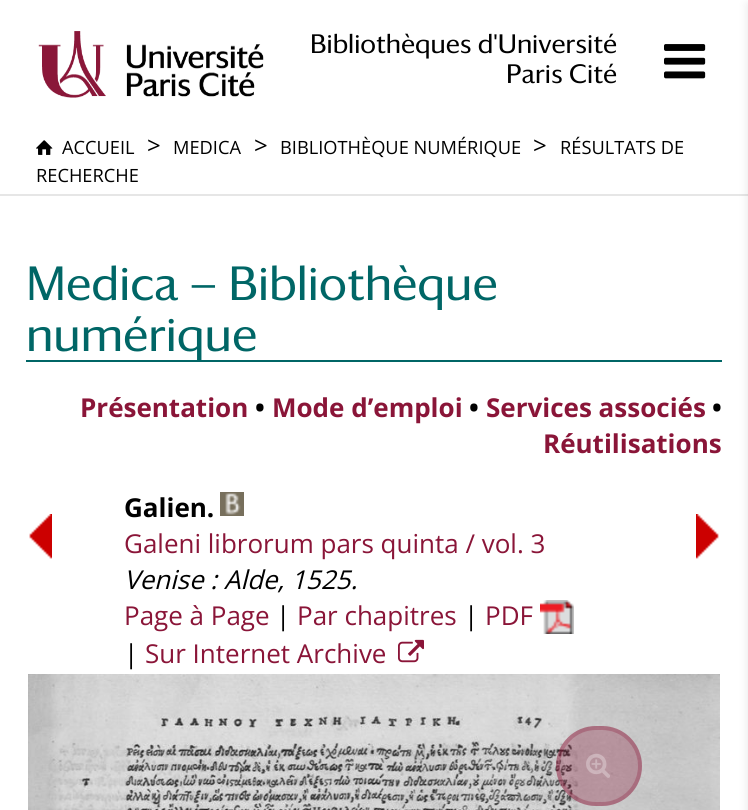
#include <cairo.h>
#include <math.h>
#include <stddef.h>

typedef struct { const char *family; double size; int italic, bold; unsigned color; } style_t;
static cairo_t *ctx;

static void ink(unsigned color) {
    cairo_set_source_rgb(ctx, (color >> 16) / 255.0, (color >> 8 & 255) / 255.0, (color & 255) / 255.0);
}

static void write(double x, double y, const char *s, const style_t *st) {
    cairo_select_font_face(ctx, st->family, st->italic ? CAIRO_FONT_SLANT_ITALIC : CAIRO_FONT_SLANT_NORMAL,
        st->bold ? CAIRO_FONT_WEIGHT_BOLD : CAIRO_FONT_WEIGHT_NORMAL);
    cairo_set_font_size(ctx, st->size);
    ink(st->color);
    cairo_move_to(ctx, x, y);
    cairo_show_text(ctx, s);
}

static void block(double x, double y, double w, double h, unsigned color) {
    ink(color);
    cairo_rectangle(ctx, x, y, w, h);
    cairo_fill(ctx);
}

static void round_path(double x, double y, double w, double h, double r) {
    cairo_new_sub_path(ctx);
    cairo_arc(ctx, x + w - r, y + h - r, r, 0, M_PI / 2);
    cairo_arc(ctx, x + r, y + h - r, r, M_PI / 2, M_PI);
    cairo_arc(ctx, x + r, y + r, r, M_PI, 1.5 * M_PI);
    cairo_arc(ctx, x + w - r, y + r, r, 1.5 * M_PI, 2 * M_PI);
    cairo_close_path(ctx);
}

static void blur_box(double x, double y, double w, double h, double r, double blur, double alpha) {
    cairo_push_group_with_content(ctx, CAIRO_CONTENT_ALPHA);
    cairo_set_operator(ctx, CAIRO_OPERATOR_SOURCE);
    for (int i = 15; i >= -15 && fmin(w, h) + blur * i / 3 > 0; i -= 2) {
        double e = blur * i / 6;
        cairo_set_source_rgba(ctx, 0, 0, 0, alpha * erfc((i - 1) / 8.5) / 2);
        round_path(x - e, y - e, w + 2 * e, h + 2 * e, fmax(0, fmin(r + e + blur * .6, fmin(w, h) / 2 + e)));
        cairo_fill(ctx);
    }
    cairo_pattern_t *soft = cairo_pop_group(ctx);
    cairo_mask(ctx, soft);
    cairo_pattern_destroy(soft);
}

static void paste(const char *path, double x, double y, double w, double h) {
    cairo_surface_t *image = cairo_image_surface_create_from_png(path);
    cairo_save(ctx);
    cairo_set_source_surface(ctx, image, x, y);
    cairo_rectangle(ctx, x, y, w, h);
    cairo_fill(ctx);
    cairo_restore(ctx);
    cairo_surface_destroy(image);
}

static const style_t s1 = {"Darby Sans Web", 26, 0, 0, 0x000000};
static const style_t s2 = {"Open Sans", 18.25, 0, 0, 0x000000};
static const style_t s3 = {"Open Sans", 24, 0, 0, 0x000000};
static const style_t s4 = {"Darby Sans Web", 46.75, 0, 0, 0x006666};
static const style_t s5 = {"Open Sans", 26, 0, 1, 0x8a1538};
static const style_t s6 = {"Open Sans", 26, 0, 1, 0x000000};
static const style_t s7 = {"Open Sans", 26, 0, 0, 0x8a1538};
static const style_t s8 = {"Open Sans", 26, 1, 0, 0x000000};
static const style_t s9 = {"Open Sans", 26, 0, 0, 0x000000};

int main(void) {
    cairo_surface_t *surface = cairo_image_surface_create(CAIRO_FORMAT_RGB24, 748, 810);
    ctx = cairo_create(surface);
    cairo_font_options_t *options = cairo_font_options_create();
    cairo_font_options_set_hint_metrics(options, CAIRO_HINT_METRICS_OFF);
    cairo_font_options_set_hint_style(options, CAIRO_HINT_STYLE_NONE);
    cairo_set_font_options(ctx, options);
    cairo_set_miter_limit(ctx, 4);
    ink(0xffffff);
    cairo_paint(ctx);
    block(0, 194, 748, 2, 0xe6e6e6);
    paste("pic1.png", 38, 31, 226, 67);
    write(310, 53, "Bibliothèques d'Université", &s1);
    write(506, 83, "Paris Cité", &s1);
    paste("pic2.png", 664, 44, 42, 35);
    ink(0x000000);
    blur_box(748, 4, 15, 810, 0, 5, 0.1);
    paste("pic3.png", 36, 140, 17, 15);
    write(62, 154, "ACCUEIL", &s2);
    write(147, 154, ">", &s3);
    write(173, 154, "MEDICA", &s2);
    write(254, 154, ">", &s3);
    write(280, 154, "BIBLIOTHÈQUE NUMÉRIQUE", &s2);
    write(533, 154, ">", &s3);
    write(560, 154, "RÉSULTATS DE", &s2);
    write(36, 182, "RECHERCHE", &s2);
    block(26, 360, 696, 2, 0x006666);
    write(26, 300, "Medica — Bibliothèque", &s4);
    write(26, 351, "numérique", &s4);
    write(80, 417, "Présentation", &s5);
    write(255, 417, "•", &s6);
    write(272, 417, "Mode d’emploi", &s5);
    write(469, 417, "•", &s6);
    write(486, 417, "Services associés", &s5);
    write(712, 417, "•", &s6);
    write(543, 453, "Réutilisations", &s5);
    paste("pic4.png", 29, 514, 23, 45);
    write(124, 517, "Galien.", &s6);
    paste("pic5.png", 220, 492, 24, 24);
    write(124, 553, "Galeni librorum pars quinta / vol. 3", &s7);
    write(124, 589, "Venise : Alde, 1525.", &s8);
    write(124, 625, "Page à Page", &s7);
    write(276, 625, "|", &s9);
    write(297, 625, "Par chapitres", &s7);
    write(464, 625, "|", &s9);
    write(485, 625, "PDF", &s7);
    paste("pic6.png", 540, 600, 34, 34);
    write(124, 663, "|", &s9);
    write(145, 663, "Sur Internet Archive", &s7);
    paste("pic7.png", 398, 639, 26, 24);
    paste("pic8.png", 696, 514, 23, 45);
    paste("pic9.png", 28, 674, 692, 136);
    cairo_set_source_rgba(ctx, 0.541, 0.082, 0.22, 0.3);
    round_path(556, 726, 86, 80, 40);
    cairo_fill(ctx);
    round_path(558, 728, 82, 76, 38);
    cairo_set_line_width(ctx, 4);
    cairo_stroke(ctx);
    paste("pic10.png", 586, 753, 24, 25);
    cairo_surface_write_to_png(surface, "screenshot.png");
    cairo_font_options_destroy(options);
    cairo_destroy(ctx);
    cairo_surface_destroy(surface);
    return 0;
}
